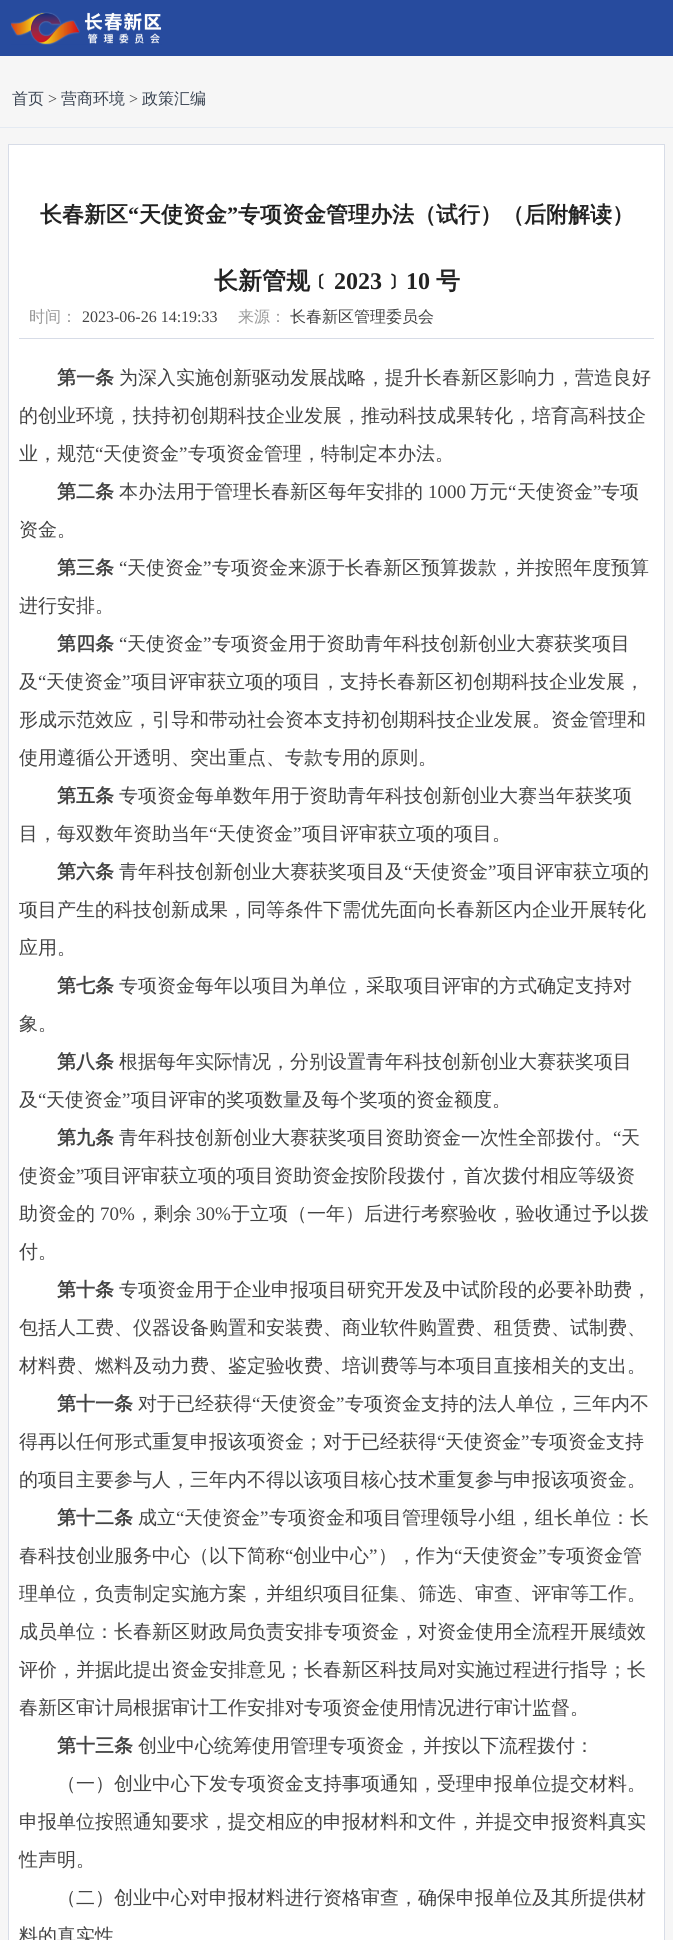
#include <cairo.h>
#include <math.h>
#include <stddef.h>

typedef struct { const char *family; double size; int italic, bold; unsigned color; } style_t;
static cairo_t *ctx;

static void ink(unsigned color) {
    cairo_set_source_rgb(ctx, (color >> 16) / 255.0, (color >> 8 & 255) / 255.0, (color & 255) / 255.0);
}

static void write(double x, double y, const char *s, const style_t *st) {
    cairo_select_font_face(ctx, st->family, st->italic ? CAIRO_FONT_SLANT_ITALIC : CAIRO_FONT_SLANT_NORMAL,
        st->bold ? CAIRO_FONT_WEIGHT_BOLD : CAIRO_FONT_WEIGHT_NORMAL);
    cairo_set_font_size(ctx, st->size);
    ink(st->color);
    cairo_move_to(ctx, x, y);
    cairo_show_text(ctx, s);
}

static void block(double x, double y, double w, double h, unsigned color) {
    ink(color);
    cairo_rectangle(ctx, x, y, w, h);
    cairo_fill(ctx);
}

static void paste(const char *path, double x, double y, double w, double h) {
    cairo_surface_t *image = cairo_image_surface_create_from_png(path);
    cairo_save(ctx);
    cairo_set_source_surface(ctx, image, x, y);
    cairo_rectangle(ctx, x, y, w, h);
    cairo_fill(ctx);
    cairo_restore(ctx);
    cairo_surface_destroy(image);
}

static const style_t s1 = {"WenQuanYi Zen Hei Medium", 16, 0, 0, 0x394351};
static const style_t s2 = {"Liberation Serif", 16, 0, 0, 0x434343};
static const style_t s3 = {"WenQuanYi Zen Hei", 22, 0, 1, 0x222222};
static const style_t s4 = {"Liberation Serif", 22, 0, 1, 0x222222};
static const style_t s5 = {"WenQuanYi Zen Hei", 24, 0, 1, 0x222222};
static const style_t s6 = {"Liberation Serif", 24, 0, 1, 0x222222};
static const style_t s7 = {"WenQuanYi Zen Hei Medium", 16, 0, 0, 0x999999};
static const style_t s8 = {"WenQuanYi Zen Hei Medium", 16, 0, 0, 0x434343};
static const style_t s9 = {"WenQuanYi Zen Hei", 19, 0, 1, 0x434343};
static const style_t s10 = {"WenQuanYi Zen Hei Medium", 19, 0, 0, 0x434343};
static const style_t s11 = {"Liberation Serif", 19, 0, 0, 0x434343};

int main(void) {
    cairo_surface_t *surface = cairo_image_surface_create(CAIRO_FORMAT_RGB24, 673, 1940);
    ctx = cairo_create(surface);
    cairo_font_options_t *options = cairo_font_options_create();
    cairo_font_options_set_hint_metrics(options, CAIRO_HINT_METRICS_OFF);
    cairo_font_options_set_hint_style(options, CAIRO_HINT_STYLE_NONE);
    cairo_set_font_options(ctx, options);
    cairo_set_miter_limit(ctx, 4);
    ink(0xf6f6f6);
    cairo_paint(ctx);
    block(0, 0, 673, 56, 0x274b9e);
    paste("pic1.png", 11, 12, 151, 33);
    block(0, 127, 673, 1, 0xe4eaf2);
    write(12, 104, "首页", &s1);
    write(48, 104, ">", &s2);
    write(61, 104, "营商环境", &s1);
    write(129, 104, ">", &s2);
    write(142, 104, "政策汇编", &s1);
    ink(0xffffff);
    cairo_rectangle(ctx, 8.5, 144.5, 656, 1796);
    cairo_fill_preserve(ctx);
    ink(0xd7dce7);
    cairo_set_line_width(ctx, 1);
    cairo_stroke(ctx);
    write(40, 222, "长春新区", &s3);
    write(128, 222, "“", &s4);
    write(139, 222, "天使资金", &s3);
    write(227, 222, "”", &s4);
    write(238, 222, "专项资金管理办法（试行）（后附解读）", &s3);
    write(214, 289, "长新管规﹝", &s5);
    write(334, 289, "2023", &s6);
    write(382, 289, "﹞", &s5);
    write(406, 289, "10", &s6);
    write(436, 289, "号", &s5);
    block(19, 338, 635, 1, 0xd7dce7);
    write(29, 322, "时间：", &s7);
    write(82, 322, "2023-06-26 14:19:33", &s2);
    write(238, 322, "来源：", &s7);
    write(290, 322, "长春新区管理委员会", &s8);
    write(57, 384, "第一条", &s9);
    write(119, 384, "为深入实施创新驱动发展战略，提升长春新区影响力，营造良好", &s10);
    write(19, 422, "的创业环境，扶持初创期科技企业发展，推动科技成果转化，培育高科技企", &s10);
    write(19, 460, "业，规范", &s10);
    write(95, 460, "“", &s11);
    write(103, 460, "天使资金", &s10);
    write(179, 460, "”", &s11);
    write(188, 460, "专项资金管理，特制定本办法。", &s10);
    write(57, 498, "第二条", &s9);
    write(119, 498, "本办法用于管理长春新区每年安排的", &s10);
    write(428, 498, "1000", &s11);
    write(470, 498, "万元", &s10);
    write(508, 498, "“", &s11);
    write(517, 498, "天使资金", &s10);
    write(593, 498, "”", &s11);
    write(601, 498, "专项", &s10);
    write(19, 536, "资金。", &s10);
    write(57, 574, "第三条", &s9);
    write(119, 574, "“", &s11);
    write(127, 574, "天使资金", &s10);
    write(203, 574, "”", &s11);
    write(212, 574, "专项资金来源于长春新区预算拨款，并按照年度预算", &s10);
    write(19, 612, "进行安排。", &s10);
    write(57, 650, "第四条", &s9);
    write(119, 650, "“", &s11);
    write(127, 650, "天使资金", &s10);
    write(203, 650, "”", &s11);
    write(212, 650, "专项资金用于资助青年科技创新创业大赛获奖项目", &s10);
    write(19, 688, "及", &s10);
    write(38, 688, "“", &s11);
    write(46, 688, "天使资金", &s10);
    write(122, 688, "”", &s11);
    write(131, 688, "项目评审获立项的项目，支持长春新区初创期科技企业发展，", &s10);
    write(19, 726, "形成示范效应，引导和带动社会资本支持初创期科技企业发展。资金管理和", &s10);
    write(19, 764, "使用遵循公开透明、突出重点、专款专用的原则。", &s10);
    write(57, 802, "第五条", &s9);
    write(119, 802, "专项资金每单数年用于资助青年科技创新创业大赛当年获奖项", &s10);
    write(19, 840, "目，每双数年资助当年", &s10);
    write(209, 840, "“", &s11);
    write(217, 840, "天使资金", &s10);
    write(293, 840, "”", &s11);
    write(302, 840, "项目评审获立项的项目。", &s10);
    write(57, 878, "第六条", &s9);
    write(119, 878, "青年科技创新创业大赛获奖项目及", &s10);
    write(404, 878, "“", &s11);
    write(412, 878, "天使资金", &s10);
    write(488, 878, "”", &s11);
    write(497, 878, "项目评审获立项的", &s10);
    write(19, 916, "项目产生的科技创新成果，同等条件下需优先面向长春新区内企业开展转化", &s10);
    write(19, 954, "应用。", &s10);
    write(57, 992, "第七条", &s9);
    write(119, 992, "专项资金每年以项目为单位，采取项目评审的方式确定支持对", &s10);
    write(19, 1030, "象。", &s10);
    write(57, 1068, "第八条", &s9);
    write(119, 1068, "根据每年实际情况，分别设置青年科技创新创业大赛获奖项目", &s10);
    write(19, 1106, "及", &s10);
    write(38, 1106, "“", &s11);
    write(46, 1106, "天使资金", &s10);
    write(122, 1106, "”", &s11);
    write(131, 1106, "项目评审的奖项数量及每个奖项的资金额度。", &s10);
    write(57, 1144, "第九条", &s9);
    write(119, 1144, "青年科技创新创业大赛获奖项目资助资金一次性全部拨付。", &s10);
    write(613, 1144, "“", &s11);
    write(621, 1144, "天", &s10);
    write(19, 1182, "使资金", &s10);
    write(76, 1182, "”", &s11);
    write(84, 1182, "项目评审获立项的项目资助资金按阶段拨付，首次拨付相应等级资", &s10);
    write(19, 1220, "助资金的", &s10);
    write(100, 1220, "70%", &s11);
    write(135, 1220, "，剩余", &s10);
    write(196, 1220, "30%", &s11);
    write(231, 1220, "于立项（一年）后进行考察验收，验收通过予以拨", &s10);
    write(19, 1258, "付。", &s10);
    write(57, 1296, "第十条", &s9);
    write(119, 1296, "专项资金用于企业申报项目研究开发及中试阶段的必要补助费，", &s10);
    write(19, 1334, "包括人工费、仪器设备购置和安装费、商业软件购置费、租赁费、试制费、", &s10);
    write(19, 1372, "材料费、燃料及动力费、鉴定验收费、培训费等与本项目直接相关的支出。", &s10);
    write(57, 1410, "第十一条", &s9);
    write(138, 1410, "对于已经获得", &s10);
    write(252, 1410, "“", &s11);
    write(260, 1410, "天使资金", &s10);
    write(336, 1410, "”", &s11);
    write(345, 1410, "专项资金支持的法人单位，三年内不", &s10);
    write(19, 1448, "得再以任何形式重复申报该项资金；对于已经获得", &s10);
    write(437, 1448, "“", &s11);
    write(445, 1448, "天使资金", &s10);
    write(521, 1448, "”", &s11);
    write(530, 1448, "专项资金支持", &s10);
    write(19, 1486, "的项目主要参与人，三年内不得以该项目核心技术重复参与申报该项资金。", &s10);
    write(57, 1524, "第十二条", &s9);
    write(138, 1524, "成立", &s10);
    write(176, 1524, "“", &s11);
    write(184, 1524, "天使资金", &s10);
    write(260, 1524, "”", &s11);
    write(269, 1524, "专项资金和项目管理领导小组，组长单位：长", &s10);
    write(19, 1562, "春科技创业服务中心（以下简称", &s10);
    write(285, 1562, "“", &s11);
    write(293, 1562, "创业中心", &s10);
    write(369, 1562, "”", &s11);
    write(378, 1562, "），作为", &s10);
    write(454, 1562, "“", &s11);
    write(462, 1562, "天使资金", &s10);
    write(538, 1562, "”", &s11);
    write(547, 1562, "专项资金管", &s10);
    write(19, 1600, "理单位，负责制定实施方案，并组织项目征集、筛选、审查、评审等工作。", &s10);
    write(19, 1638, "成员单位：长春新区财政局负责安排专项资金，对资金使用全流程开展绩效", &s10);
    write(19, 1676, "评价，并据此提出资金安排意见；长春新区科技局对实施过程进行指导；长", &s10);
    write(19, 1714, "春新区审计局根据审计工作安排对专项资金使用情况进行审计监督。", &s10);
    write(57, 1752, "第十三条", &s9);
    write(138, 1752, "创业中心统筹使用管理专项资金，并按以下流程拨付：", &s10);
    write(57, 1790, "（一）创业中心下发专项资金支持事项通知，受理申报单位提交材料。", &s10);
    write(19, 1828, "申报单位按照通知要求，提交相应的申报材料和文件，并提交申报资料真实", &s10);
    write(19, 1866, "性声明。", &s10);
    write(57, 1904, "（二）创业中心对申报材料进行资格审查，确保申报单位及其所提供材", &s10);
    write(19, 1942, "料的真实性", &s10);
    cairo_surface_write_to_png(surface, "screenshot.png");
    cairo_font_options_destroy(options);
    cairo_destroy(ctx);
    cairo_surface_destroy(surface);
    return 0;
}
